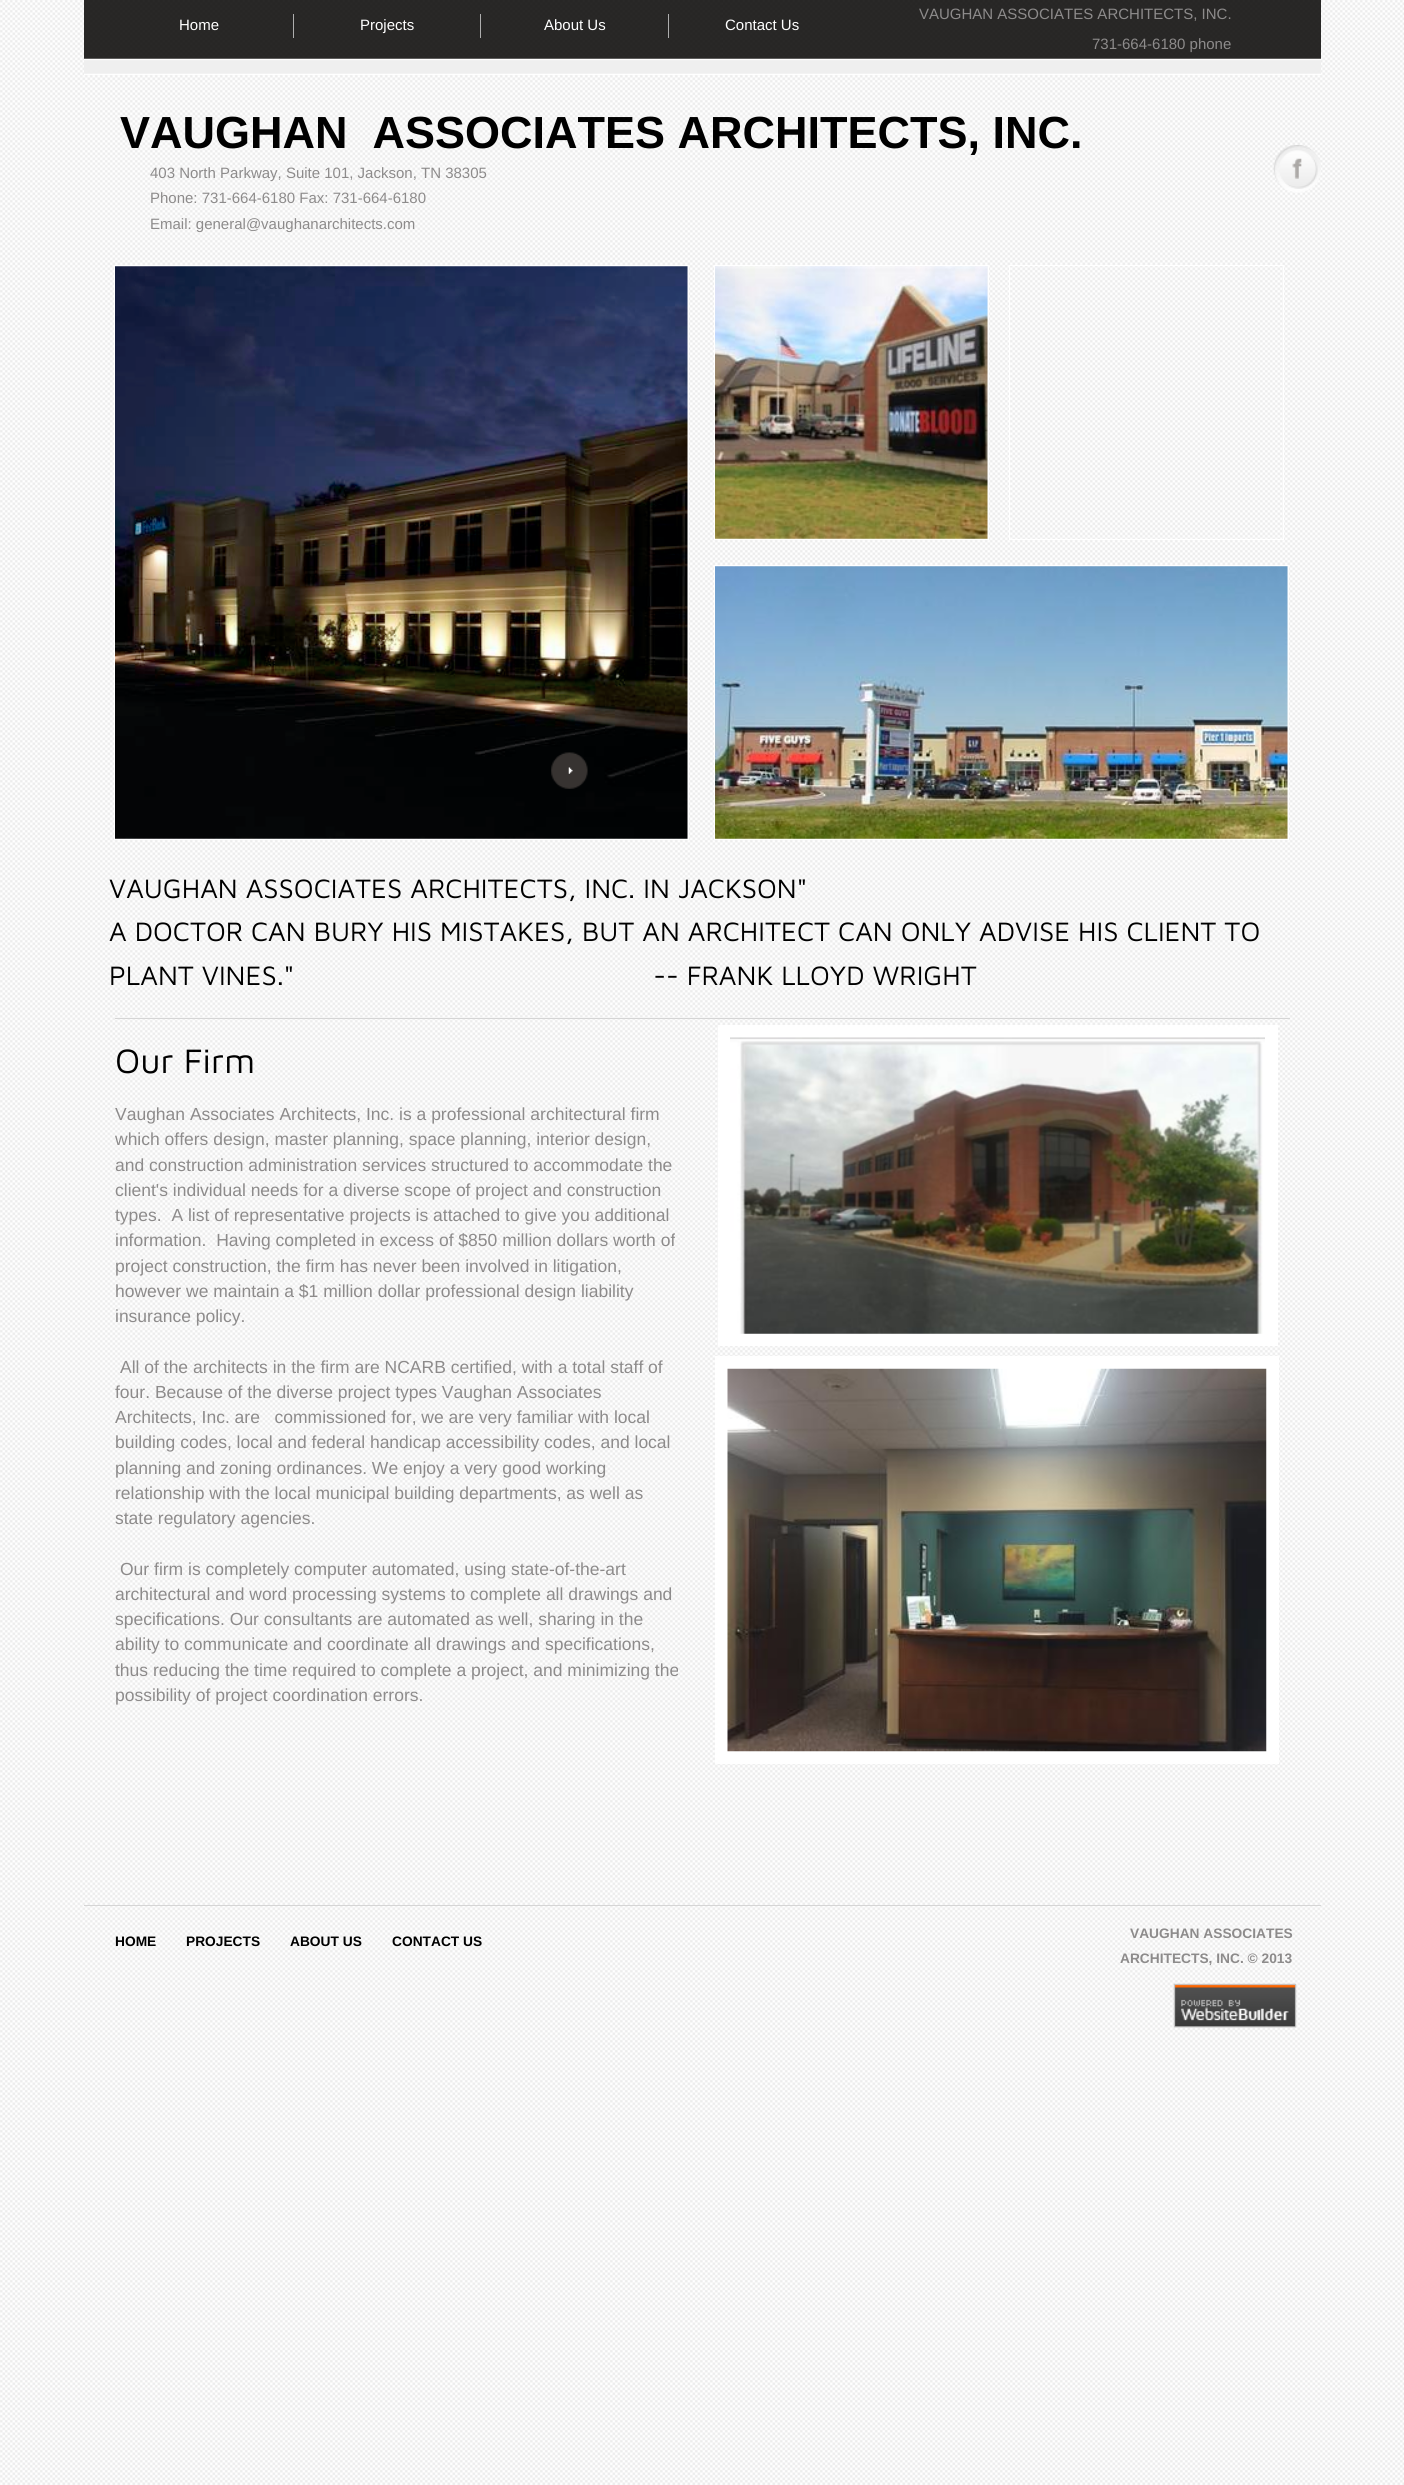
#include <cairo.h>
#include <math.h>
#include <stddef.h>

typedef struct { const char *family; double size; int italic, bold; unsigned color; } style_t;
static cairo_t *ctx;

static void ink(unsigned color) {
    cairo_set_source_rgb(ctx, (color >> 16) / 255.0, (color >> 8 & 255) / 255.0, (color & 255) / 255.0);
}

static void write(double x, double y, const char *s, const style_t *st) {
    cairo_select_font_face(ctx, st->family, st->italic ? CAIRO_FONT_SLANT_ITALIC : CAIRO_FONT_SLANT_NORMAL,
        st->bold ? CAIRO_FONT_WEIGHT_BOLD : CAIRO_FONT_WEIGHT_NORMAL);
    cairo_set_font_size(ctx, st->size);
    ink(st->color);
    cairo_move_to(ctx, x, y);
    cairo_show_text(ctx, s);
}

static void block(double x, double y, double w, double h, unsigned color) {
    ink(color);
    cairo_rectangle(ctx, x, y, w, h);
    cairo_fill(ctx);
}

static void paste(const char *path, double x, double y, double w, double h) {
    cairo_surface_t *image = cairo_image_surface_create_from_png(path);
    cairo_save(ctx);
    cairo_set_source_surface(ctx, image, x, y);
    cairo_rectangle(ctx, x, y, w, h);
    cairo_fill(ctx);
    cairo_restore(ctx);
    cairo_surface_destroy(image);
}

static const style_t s1 = {"Liberation Sans", 15, 0, 0, 0xffffff};
static const style_t s2 = {"Liberation Sans", 15, 0, 0, 0x8d8b8b};
static const style_t s3 = {"Liberation Sans", 45, 0, 1, 0x000000};
static const style_t s4 = {"Maven Pro", 27.5, 0, 0, 0x000000};
static const style_t s5 = {"Maven Pro", 35, 0, 0, 0x000000};
static const style_t s6 = {"Liberation Sans", 17.5, 0, 0, 0x8d8b8b};
static const style_t s7 = {"Liberation Sans", 13.75, 0, 1, 0x000000};
static const style_t s8 = {"Liberation Sans", 13.75, 0, 1, 0x8d8b8b};

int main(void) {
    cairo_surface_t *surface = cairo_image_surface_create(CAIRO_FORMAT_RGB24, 1404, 2485);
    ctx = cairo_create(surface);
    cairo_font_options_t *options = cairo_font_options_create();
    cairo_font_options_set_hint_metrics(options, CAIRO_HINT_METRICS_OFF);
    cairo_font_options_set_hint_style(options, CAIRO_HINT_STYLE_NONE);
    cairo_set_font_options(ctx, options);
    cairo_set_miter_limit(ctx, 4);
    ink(0xffffff);
    cairo_paint(ctx);
    paste("pic1.png", 0, 0, 1404, 2485);
    paste("pic2.png", 84, 0, 1237, 75);
    block(293, 14, 1, 24, 0xaeaeae);
    write(179, 30, "Home", &s1);
    block(480, 14, 1, 24, 0xaeaeae);
    write(360, 30, "Projects", &s1);
    block(668, 14, 1, 24, 0xaeaeae);
    write(544, 30, "About Us", &s1);
    write(725, 30, "Contact Us", &s1);
    write(919, 19, "VAUGHAN ASSOCIATES ARCHITECTS, INC.", &s2);
    write(1092, 49, "731-664-6180 phone", &s2);
    write(120, 148, "VAUGHAN  ASSOCIATES ARCHITECTS, INC.", &s3);
    write(150, 178, "403 North Parkway, Suite 101, Jackson, TN 38305", &s2);
    write(150, 203, "Phone: 731-664-6180 Fax: 731-664-6180", &s2);
    write(150, 229, "Email: general@vaughanarchitects.com", &s2);
    paste("pic3.png", 1273, 145, 48, 48);
    cairo_rectangle(ctx, 114.5, 265.5, 574, 574);
    ink(0xffffff);
    cairo_set_line_width(ctx, 1);
    cairo_stroke(ctx);
    paste("pic4.png", 115, 266, 573, 573);
    cairo_rectangle(ctx, 714.5, 265.5, 274, 274);
    cairo_stroke(ctx);
    paste("pic5.png", 715, 266, 273, 273);
    cairo_rectangle(ctx, 1009.5, 265.5, 274, 274);
    cairo_stroke(ctx);
    paste("pic6.png", 551, 752, 37, 37);
    cairo_rectangle(ctx, 714.5, 565.5, 574, 274);
    cairo_stroke(ctx);
    paste("pic7.png", 715, 566, 573, 273);
    write(109, 898, "VAUGHAN ASSOCIATES ARCHITECTS, INC. IN JACKSON\"", &s4);
    write(109, 941, "A DOCTOR CAN BURY HIS MISTAKES, BUT AN ARCHITECT CAN ONLY ADVISE HIS CLIENT TO", &s4);
    write(109, 985, "PLANT VINES.\"                                             -- FRANK LLOYD WRIGHT", &s4);
    block(115, 1018, 1175, 1, 0xd5d5d5);
    write(115, 1073, "Our Firm", &s5);
    write(115, 1120, "Vaughan Associates Architects, Inc. is a professional architectural firm", &s6);
    write(115, 1145, "which offers design, master planning, space planning, interior design,", &s6);
    write(115, 1171, "and construction administration services structured to accommodate the", &s6);
    write(115, 1196, "client's individual needs for a diverse scope of project and construction", &s6);
    write(115, 1221, "types.  A list of representative projects is attached to give you additional", &s6);
    write(115, 1246, "information.  Having completed in excess of $850 million dollars worth of", &s6);
    write(115, 1272, "project construction, the firm has never been involved in litigation,", &s6);
    write(115, 1297, "however we maintain a $1 million dollar professional design liability", &s6);
    write(115, 1322, "insurance policy.", &s6);
    write(120, 1373, "All of the architects in the firm are NCARB certified, with a total staff of", &s6);
    write(115, 1398, "four. Because of the diverse project types Vaughan Associates", &s6);
    write(115, 1423, "Architects, Inc. are   commissioned for, we are very familiar with local", &s6);
    write(115, 1448, "building codes, local and federal handicap accessibility codes, and local", &s6);
    write(115, 1474, "planning and zoning ordinances. We enjoy a very good working", &s6);
    write(115, 1499, "relationship with the local municipal building departments, as well as", &s6);
    write(115, 1524, "state regulatory agencies.", &s6);
    write(120, 1575, "Our firm is completely computer automated, using state-of-the-art", &s6);
    write(115, 1600, "architectural and word processing systems to complete all drawings and", &s6);
    write(115, 1625, "specifications. Our consultants are automated as well, sharing in the", &s6);
    write(115, 1650, "ability to communicate and coordinate all drawings and specifications,", &s6);
    write(115, 1676, "thus reducing the time required to complete a project, and minimizing the", &s6);
    write(115, 1701, "possibility of project coordination errors.", &s6);
    cairo_rectangle(ctx, 724.5, 1031.5, 547, 308);
    ink(0xffffff);
    cairo_set_line_width(ctx, 13);
    cairo_stroke(ctx);
    paste("pic8.png", 730, 1037, 535, 297);
    cairo_rectangle(ctx, 721.5, 1362.5, 551, 395);
    cairo_stroke(ctx);
    paste("pic9.png", 727, 1368, 540, 384);
    block(84, 1905, 1237, 1, 0xd5d5d5);
    write(115, 1946, "HOME", &s7);
    write(186, 1946, "PROJECTS", &s7);
    write(290, 1946, "ABOUT US", &s7);
    write(392, 1946, "CONTACT US", &s7);
    write(1130, 1938, "VAUGHAN ASSOCIATES", &s8);
    write(1120, 1963, "ARCHITECTS, INC. © 2013", &s8);
    paste("pic10.png", 1173, 1983, 124, 45);
    cairo_surface_write_to_png(surface, "screenshot.png");
    cairo_font_options_destroy(options);
    cairo_destroy(ctx);
    cairo_surface_destroy(surface);
    return 0;
}
